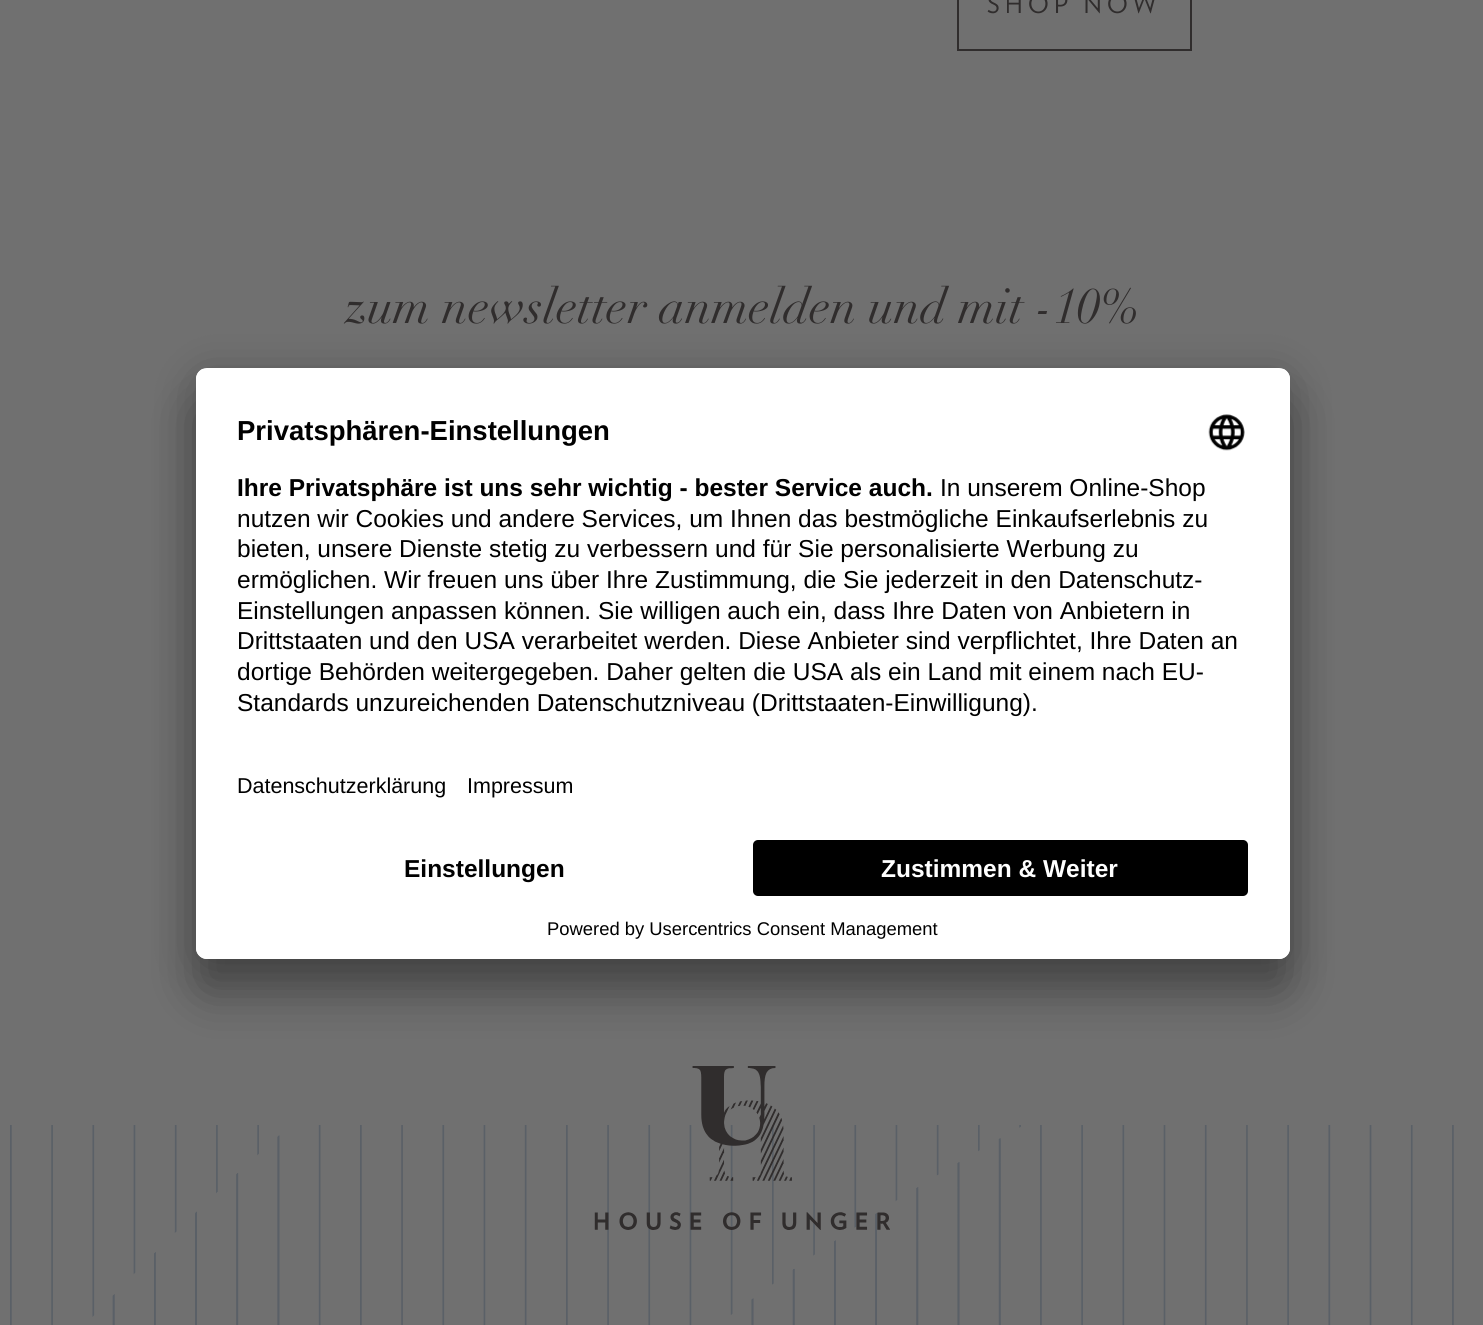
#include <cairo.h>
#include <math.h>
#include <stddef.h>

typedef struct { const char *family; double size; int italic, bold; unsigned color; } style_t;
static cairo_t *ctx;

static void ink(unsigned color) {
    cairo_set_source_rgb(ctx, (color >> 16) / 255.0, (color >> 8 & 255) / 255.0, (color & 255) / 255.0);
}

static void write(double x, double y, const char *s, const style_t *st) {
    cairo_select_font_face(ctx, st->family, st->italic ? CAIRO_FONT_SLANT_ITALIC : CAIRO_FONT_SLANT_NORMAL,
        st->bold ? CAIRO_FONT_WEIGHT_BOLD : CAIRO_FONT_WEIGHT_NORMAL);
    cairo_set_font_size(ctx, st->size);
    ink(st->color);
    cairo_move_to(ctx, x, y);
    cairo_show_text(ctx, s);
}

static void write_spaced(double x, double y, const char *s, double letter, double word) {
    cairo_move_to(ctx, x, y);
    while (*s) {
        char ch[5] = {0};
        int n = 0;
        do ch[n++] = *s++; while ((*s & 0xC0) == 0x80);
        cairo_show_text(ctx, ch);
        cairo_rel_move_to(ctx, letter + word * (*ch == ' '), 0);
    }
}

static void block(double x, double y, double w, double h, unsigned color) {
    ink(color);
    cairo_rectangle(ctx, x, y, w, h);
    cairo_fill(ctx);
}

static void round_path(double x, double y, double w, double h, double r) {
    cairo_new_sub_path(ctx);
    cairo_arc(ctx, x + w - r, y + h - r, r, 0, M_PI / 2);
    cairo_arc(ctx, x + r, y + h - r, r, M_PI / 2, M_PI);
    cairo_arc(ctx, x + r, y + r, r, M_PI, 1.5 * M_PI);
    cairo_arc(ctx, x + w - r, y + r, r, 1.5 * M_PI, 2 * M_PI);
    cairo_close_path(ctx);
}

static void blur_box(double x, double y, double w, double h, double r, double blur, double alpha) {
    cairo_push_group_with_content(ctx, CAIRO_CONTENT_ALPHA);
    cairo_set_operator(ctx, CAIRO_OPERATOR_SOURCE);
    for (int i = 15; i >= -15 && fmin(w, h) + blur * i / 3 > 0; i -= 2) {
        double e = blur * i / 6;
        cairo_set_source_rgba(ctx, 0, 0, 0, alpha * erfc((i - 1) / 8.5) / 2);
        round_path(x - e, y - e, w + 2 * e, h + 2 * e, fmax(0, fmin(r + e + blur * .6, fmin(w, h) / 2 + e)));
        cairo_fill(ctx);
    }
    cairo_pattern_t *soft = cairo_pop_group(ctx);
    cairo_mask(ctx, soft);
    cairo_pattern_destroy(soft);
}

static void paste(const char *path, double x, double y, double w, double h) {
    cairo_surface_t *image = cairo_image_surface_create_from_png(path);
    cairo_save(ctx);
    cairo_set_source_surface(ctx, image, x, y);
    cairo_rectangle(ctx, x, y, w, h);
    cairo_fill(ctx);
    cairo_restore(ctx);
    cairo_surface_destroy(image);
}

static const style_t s1 = {"Didot", 49, 1, 0, 0x302d2d};
static const style_t s2 = {"Liberation Sans", 27.5, 0, 1, 0x000000};
static const style_t s3 = {"Liberation Sans", 24.5, 0, 1, 0x000000};
static const style_t s4 = {"Liberation Sans", 24.5, 0, 0, 0x000000};
static const style_t s5 = {"Liberation Sans", 21.5, 0, 0, 0x000000};
static const style_t s6 = {"Liberation Sans", 24.5, 0, 1, 0xffffff};
static const style_t s7 = {"Liberation Sans", 18.4, 0, 0, 0x000000};

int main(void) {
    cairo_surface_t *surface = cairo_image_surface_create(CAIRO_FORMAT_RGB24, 1483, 1325);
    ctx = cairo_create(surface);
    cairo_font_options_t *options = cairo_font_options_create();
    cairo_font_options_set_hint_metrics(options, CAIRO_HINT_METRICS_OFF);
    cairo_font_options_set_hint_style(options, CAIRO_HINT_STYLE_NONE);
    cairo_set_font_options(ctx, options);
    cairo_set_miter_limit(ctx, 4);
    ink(0x707070);
    cairo_paint(ctx);
    cairo_rectangle(ctx, 958, -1, 233, 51);
    ink(0x302d2d);
    cairo_stroke(ctx);
    cairo_select_font_face(ctx, "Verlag", CAIRO_FONT_SLANT_NORMAL, CAIRO_FONT_WEIGHT_NORMAL);
    cairo_set_font_size(ctx, 25.25);
    write_spaced(987, 13, "SHOP NOW", 5, 0);
    write(345, 323, "zum newsletter anmelden und mit -10%", &s1);
    paste("pic2.png", 10, 1125, 1444, 200);
    paste("pic1.png", 594, 1066, 296, 164);
    ink(0x000000);
    blur_box(196, 403, 1094, 591, 11, 24.5, 0.3);
    blur_box(196, 376, 1094, 592, 11, 23, 0.22);
    ink(0xffffff);
    round_path(196, 368, 1094, 591, 11);
    cairo_fill(ctx);
    cairo_save(ctx);
    round_path(196, 368, 1094, 591, 11);
    cairo_clip(ctx);
    cairo_new_path(ctx);
    cairo_move_to(ctx, 207, 368);
    cairo_line_to(ctx, 1279, 368);
    cairo_curve_to(ctx, 1285, 368, 1290, 373, 1290, 379);
    cairo_line_to(ctx, 1290, 826);
    cairo_line_to(ctx, 196, 826);
    cairo_line_to(ctx, 196, 379);
    cairo_curve_to(ctx, 196, 373, 201, 368, 207, 368);
    cairo_close_path(ctx);
    cairo_clip(ctx);
    block(196, 369, 1094, 457, 0xffffff);
    cairo_restore(ctx);
    write(237, 440, "Privatsphären-Einstellungen", &s2);
    paste("pic3.png", 1208, 414, 37, 37);
    write(237, 496, "Ihre Privatsphäre ist uns sehr wichtig - bester Service auch.", &s3);
    write(940, 496, "In unserem Online-Shop", &s4);
    write(237, 527, "nutzen wir Cookies und andere Services, um Ihnen das bestmögliche Einkaufserlebnis zu", &s4);
    write(237, 557, "bieten, unsere Dienste stetig zu verbessern und für Sie personalisierte Werbung zu", &s4);
    write(237, 588, "ermöglichen. Wir freuen uns über Ihre Zustimmung, die Sie jederzeit in den Datenschutz-", &s4);
    write(237, 619, "Einstellungen anpassen können. Sie willigen auch ein, dass Ihre Daten von Anbietern in", &s4);
    write(237, 649, "Drittstaaten und den USA verarbeitet werden. Diese Anbieter sind verpflichtet, Ihre Daten an", &s4);
    write(237, 680, "dortige Behörden weitergegeben. Daher gelten die USA als ein Land mit einem nach EU-", &s4);
    write(237, 711, "Standards unzureichenden Datenschutzniveau (Drittstaaten-Einwilligung).", &s4);
    write(237, 793, "Datenschutzerklärung", &s5);
    write(467, 793, "Impressum", &s5);
    ink(0xffffff);
    cairo_new_path(ctx);
    cairo_move_to(ctx, 196, 826);
    cairo_line_to(ctx, 1290, 826);
    cairo_line_to(ctx, 1290, 948);
    cairo_curve_to(ctx, 1290, 954, 1285, 959, 1279, 959);
    cairo_line_to(ctx, 207, 959);
    cairo_curve_to(ctx, 201, 959, 196, 954, 196, 948);
    cairo_close_path(ctx);
    cairo_fill(ctx);
    write(404, 877, "Einstellungen", &s3);
    round_path(753, 840, 495, 56, 5);
    cairo_fill(ctx);
    write(881, 877, "Zustimmen & Weiter", &s6);
    write(547, 935, "Powered by Usercentrics Consent Management", &s7);
    cairo_surface_write_to_png(surface, "screenshot.png");
    cairo_font_options_destroy(options);
    cairo_destroy(ctx);
    cairo_surface_destroy(surface);
    return 0;
}
